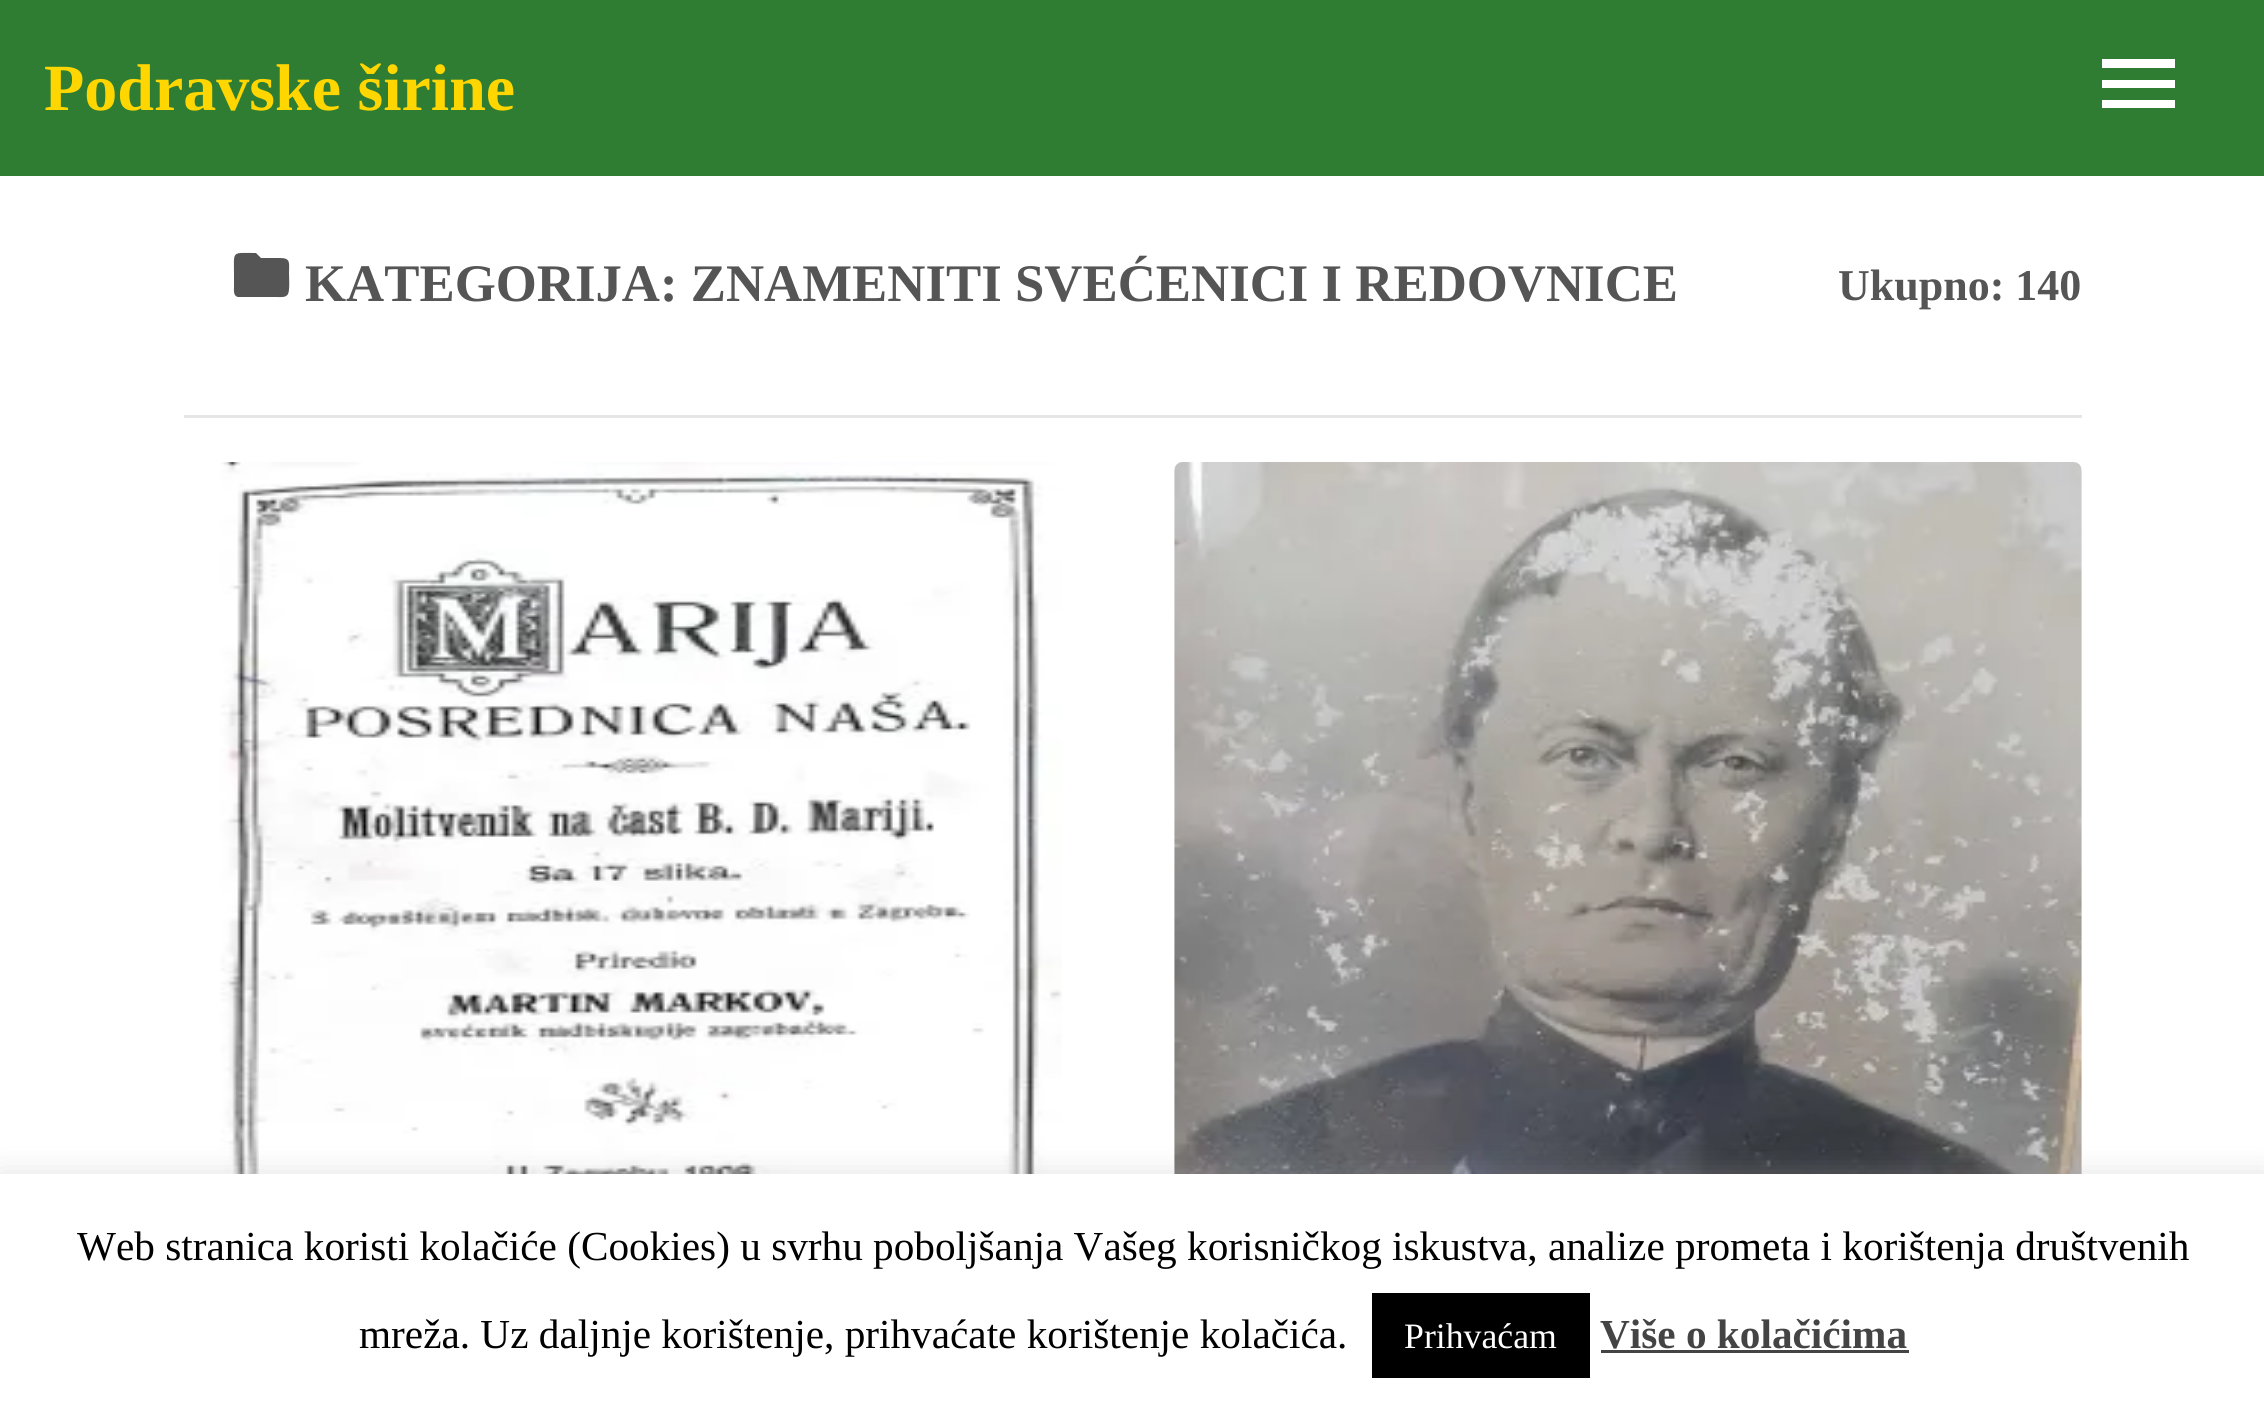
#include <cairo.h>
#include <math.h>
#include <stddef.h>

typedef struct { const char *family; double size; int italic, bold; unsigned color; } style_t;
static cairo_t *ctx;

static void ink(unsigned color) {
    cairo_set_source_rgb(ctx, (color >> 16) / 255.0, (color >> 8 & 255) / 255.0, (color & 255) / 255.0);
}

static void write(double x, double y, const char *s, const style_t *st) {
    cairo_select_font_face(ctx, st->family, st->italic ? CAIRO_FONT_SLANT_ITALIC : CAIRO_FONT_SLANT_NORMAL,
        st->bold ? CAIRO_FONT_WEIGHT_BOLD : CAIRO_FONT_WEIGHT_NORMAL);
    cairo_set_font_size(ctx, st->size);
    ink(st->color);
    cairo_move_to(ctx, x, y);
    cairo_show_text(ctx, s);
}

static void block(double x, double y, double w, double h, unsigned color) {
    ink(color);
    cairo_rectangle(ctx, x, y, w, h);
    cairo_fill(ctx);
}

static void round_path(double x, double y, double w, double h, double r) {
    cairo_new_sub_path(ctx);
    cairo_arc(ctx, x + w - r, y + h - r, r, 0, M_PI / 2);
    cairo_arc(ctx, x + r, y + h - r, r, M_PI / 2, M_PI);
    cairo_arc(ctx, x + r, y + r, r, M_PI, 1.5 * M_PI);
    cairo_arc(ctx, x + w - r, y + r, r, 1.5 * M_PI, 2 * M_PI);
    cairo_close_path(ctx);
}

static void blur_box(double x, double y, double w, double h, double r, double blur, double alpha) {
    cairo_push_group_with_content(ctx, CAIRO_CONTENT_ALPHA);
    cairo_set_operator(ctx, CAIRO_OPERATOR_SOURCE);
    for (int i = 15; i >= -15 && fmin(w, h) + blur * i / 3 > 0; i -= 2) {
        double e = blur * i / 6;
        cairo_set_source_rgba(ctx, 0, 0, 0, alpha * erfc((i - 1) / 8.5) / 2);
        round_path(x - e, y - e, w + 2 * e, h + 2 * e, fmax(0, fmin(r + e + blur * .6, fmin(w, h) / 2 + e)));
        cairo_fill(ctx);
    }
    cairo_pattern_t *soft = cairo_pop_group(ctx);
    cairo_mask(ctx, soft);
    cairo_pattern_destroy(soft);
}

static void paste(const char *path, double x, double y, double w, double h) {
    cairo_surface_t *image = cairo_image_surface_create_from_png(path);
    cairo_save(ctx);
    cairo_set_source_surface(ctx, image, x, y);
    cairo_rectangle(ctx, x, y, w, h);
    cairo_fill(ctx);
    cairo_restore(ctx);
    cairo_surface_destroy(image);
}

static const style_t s1 = {"Liberation Serif", 66, 0, 1, 0xffd600};
static const style_t s2 = {"Liberation Serif", 52.8, 0, 1, 0x555555};
static const style_t s3 = {"Liberation Serif", 44, 0, 1, 0x555555};
static const style_t s4 = {"Liberation Serif", 41.25, 0, 0, 0x000000};
static const style_t s5 = {"Liberation Serif", 35.75, 0, 0, 0xffffff};
static const style_t s6 = {"Liberation Serif", 41.25, 0, 1, 0x444444};

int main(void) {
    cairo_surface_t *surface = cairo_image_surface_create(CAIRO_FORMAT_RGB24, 2264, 1410);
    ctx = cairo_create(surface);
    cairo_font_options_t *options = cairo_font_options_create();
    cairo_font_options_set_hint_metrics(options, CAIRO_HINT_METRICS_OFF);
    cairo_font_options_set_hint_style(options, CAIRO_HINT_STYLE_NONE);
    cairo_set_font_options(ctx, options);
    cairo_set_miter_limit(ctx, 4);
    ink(0xffffff);
    cairo_paint(ctx);
    block(0, 0, 2264, 176, 0x2e7d32);
    write(44, 110, "Podravske širine", &s1);
    ink(0xffffff);
    cairo_new_path(ctx);
    cairo_move_to(ctx, 2102, 59);
    cairo_line_to(ctx, 2175, 59);
    cairo_line_to(ctx, 2175, 68);
    cairo_line_to(ctx, 2102, 68);
    cairo_close_path(ctx);
    cairo_move_to(ctx, 2102, 88);
    cairo_line_to(ctx, 2102, 80);
    cairo_line_to(ctx, 2175, 80);
    cairo_line_to(ctx, 2175, 88);
    cairo_close_path(ctx);
    cairo_move_to(ctx, 2102, 108);
    cairo_line_to(ctx, 2102, 100);
    cairo_line_to(ctx, 2175, 100);
    cairo_line_to(ctx, 2175, 108);
    cairo_close_path(ctx);
    cairo_fill(ctx);
    ink(0x555555);
    cairo_new_path(ctx);
    cairo_move_to(ctx, 256, 253);
    cairo_line_to(ctx, 261, 258);
    cairo_line_to(ctx, 280, 258);
    cairo_curve_to(ctx, 291, 258, 289, 263, 289, 273);
    cairo_curve_to(ctx, 289, 277, 290, 290, 288, 294);
    cairo_curve_to(ctx, 286, 298, 280, 297, 276, 297);
    cairo_line_to(ctx, 238, 297);
    cairo_curve_to(ctx, 233, 296, 234, 290, 234, 286);
    cairo_line_to(ctx, 234, 275);
    cairo_curve_to(ctx, 234, 250, 231, 253, 256, 253);
    cairo_close_path(ctx);
    cairo_fill(ctx);
    write(305, 301, "KATEGORIJA: ZNAMENITI SVEĆENICI I REDOVNICE", &s2);
    write(1838, 300, "Ukupno: 140", &s3);
    block(184, 415, 1898, 3, 0xe6e6e6);
    paste("pic1.png", 220, 462, 842, 712);
    paste("pic2.png", 1174, 462, 908, 712);
    ink(0xacabab);
    blur_box(0, 1172, 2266, 236, 0, 14, 0.3);
    block(0, 1174, 2264, 236, 0xffffff);
    write(77, 1260, "Web stranica koristi kolačiće (Cookies) u svrhu poboljšanja Vašeg korisničkog iskustva, analize prometa i korištenja društvenih", &s4);
    write(359, 1348, "mreža. Uz daljnje korištenje, prihvaćate korištenje kolačića.", &s4);
    block(1372, 1293, 218, 85, 0x000000);
    write(1404, 1348, "Prihvaćam", &s5);
    write(1600, 1348, "Više o kolačićima", &s6);
    block(1601, 1350, 308, 3, 0x444444);
    cairo_surface_write_to_png(surface, "screenshot.png");
    cairo_font_options_destroy(options);
    cairo_destroy(ctx);
    cairo_surface_destroy(surface);
    return 0;
}
